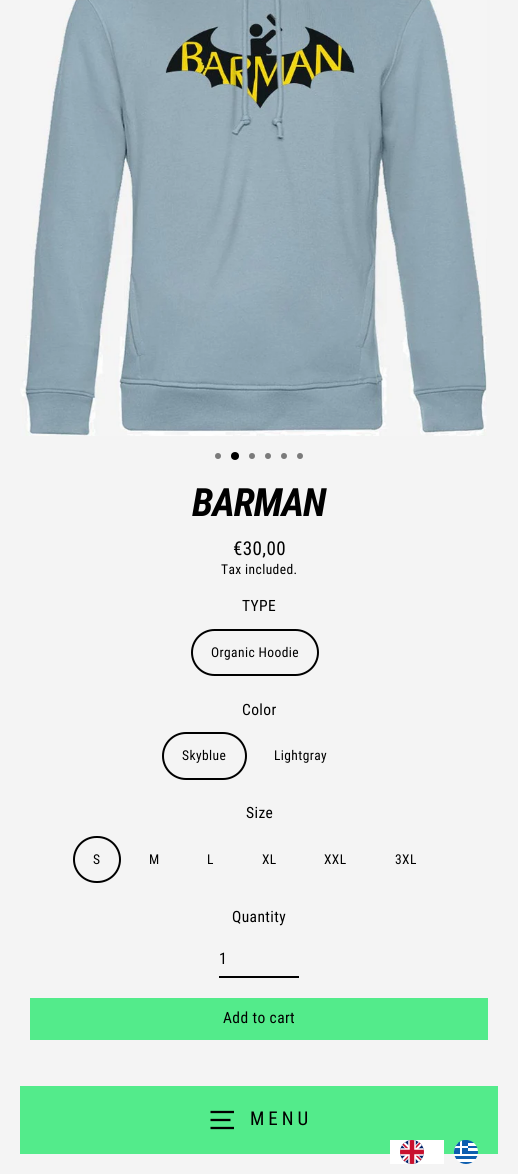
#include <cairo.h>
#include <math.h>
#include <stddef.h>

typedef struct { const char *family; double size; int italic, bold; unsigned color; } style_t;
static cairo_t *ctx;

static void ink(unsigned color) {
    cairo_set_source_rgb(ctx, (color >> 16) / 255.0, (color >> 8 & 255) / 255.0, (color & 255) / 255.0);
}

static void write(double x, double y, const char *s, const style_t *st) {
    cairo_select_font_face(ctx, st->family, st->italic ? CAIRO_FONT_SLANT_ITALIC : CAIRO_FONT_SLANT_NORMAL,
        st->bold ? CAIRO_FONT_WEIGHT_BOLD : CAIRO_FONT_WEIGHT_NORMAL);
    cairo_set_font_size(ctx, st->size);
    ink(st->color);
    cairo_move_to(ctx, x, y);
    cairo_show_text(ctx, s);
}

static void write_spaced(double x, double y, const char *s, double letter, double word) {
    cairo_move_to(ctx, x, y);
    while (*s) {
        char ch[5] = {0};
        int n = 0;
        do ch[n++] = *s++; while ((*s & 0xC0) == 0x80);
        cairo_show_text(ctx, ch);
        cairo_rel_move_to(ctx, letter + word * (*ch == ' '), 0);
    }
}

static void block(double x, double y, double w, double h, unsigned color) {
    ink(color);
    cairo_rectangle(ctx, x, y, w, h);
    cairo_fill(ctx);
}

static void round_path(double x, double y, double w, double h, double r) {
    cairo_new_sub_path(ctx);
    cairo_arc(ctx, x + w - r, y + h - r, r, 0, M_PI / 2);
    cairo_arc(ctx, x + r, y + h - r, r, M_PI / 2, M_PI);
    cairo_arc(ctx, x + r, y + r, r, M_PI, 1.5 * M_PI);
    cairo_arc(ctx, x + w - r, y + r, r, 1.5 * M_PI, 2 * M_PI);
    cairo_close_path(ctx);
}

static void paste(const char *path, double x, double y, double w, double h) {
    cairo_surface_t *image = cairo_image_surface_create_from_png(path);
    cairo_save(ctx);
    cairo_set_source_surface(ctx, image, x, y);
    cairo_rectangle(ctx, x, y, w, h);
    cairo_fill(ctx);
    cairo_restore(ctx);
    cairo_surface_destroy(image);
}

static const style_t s1 = {"Roboto Condensed", 16, 0, 0, 0x000000};

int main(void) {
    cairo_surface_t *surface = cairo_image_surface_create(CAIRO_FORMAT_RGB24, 518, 1174);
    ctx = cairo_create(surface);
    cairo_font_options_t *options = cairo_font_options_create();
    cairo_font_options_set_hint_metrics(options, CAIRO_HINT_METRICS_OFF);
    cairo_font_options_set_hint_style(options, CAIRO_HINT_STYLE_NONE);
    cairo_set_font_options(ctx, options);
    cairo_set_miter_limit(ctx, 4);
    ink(0xf4f4f4);
    cairo_paint(ctx);
    paste("pic1.png", 20, 0, 467, 436);
    ink(0x7a7a7a);
    cairo_arc(ctx, 218, 456, 3, 0, 2 * M_PI);
    cairo_fill(ctx);
    ink(0x000000);
    cairo_arc(ctx, 235, 456, 4, 0, 2 * M_PI);
    cairo_fill(ctx);
    ink(0x7a7a7a);
    cairo_arc(ctx, 252, 456, 3, 0, 2 * M_PI);
    cairo_fill(ctx);
    cairo_arc(ctx, 268, 456, 3, 0, 2 * M_PI);
    cairo_fill(ctx);
    cairo_arc(ctx, 284, 456, 3, 0, 2 * M_PI);
    cairo_fill(ctx);
    cairo_arc(ctx, 300, 456, 3, 0, 2 * M_PI);
    cairo_fill(ctx);
    cairo_select_font_face(ctx, "Roboto Condensed", CAIRO_FONT_SLANT_ITALIC, CAIRO_FONT_WEIGHT_BOLD);
    cairo_set_font_size(ctx, 39);
    ink(0x000000);
    write_spaced(192, 516, "BARMAN", -1, 0);
    cairo_select_font_face(ctx, "Roboto Condensed", CAIRO_FONT_SLANT_NORMAL, CAIRO_FONT_WEIGHT_NORMAL);
    cairo_set_font_size(ctx, 19);
    write_spaced(233, 555, "€30,00", 0.4, 0);
    cairo_set_font_size(ctx, 13.5);
    write_spaced(221, 574, "Tax included.", 0.4, 0);
    cairo_set_font_size(ctx, 15.5);
    write_spaced(242, 611, "TYPE", 0.4, 0);
    round_path(192, 630, 126, 45, 22.5);
    cairo_stroke(ctx);
    cairo_set_font_size(ctx, 13.5);
    write_spaced(211, 657, "Organic Hoodie", 0.4, 0);
    cairo_set_font_size(ctx, 15.5);
    write_spaced(242, 715, "Color", 0.4, 0);
    round_path(163, 733, 83, 46, 23);
    cairo_stroke(ctx);
    cairo_set_font_size(ctx, 13.5);
    write_spaced(182, 760, "Skyblue", 0.4, 0);
    write_spaced(274, 760, "Lightgray", 0.4, 0);
    cairo_set_font_size(ctx, 15.5);
    write_spaced(246, 818, "Size", 0.4, 0);
    round_path(74, 837, 46, 45, 22.5);
    cairo_stroke(ctx);
    cairo_set_font_size(ctx, 13.5);
    write_spaced(93, 864, "S", 0.4, 0);
    write_spaced(149, 864, "M", 0.4, 0);
    write_spaced(207, 864, "L", 0.4, 0);
    write_spaced(262, 864, "XL", 0.4, 0);
    write_spaced(324, 864, "XXL", 0.4, 0);
    write_spaced(395, 864, "3XL", 0.4, 0);
    cairo_set_font_size(ctx, 15.5);
    write_spaced(232, 922, "Quantity", 0.4, 0);
    block(219, 976, 80, 2, 0x000000);
    write(219, 964, "1", &s1);
    block(30, 998, 458, 42, 0x53eb8b);
    cairo_set_font_size(ctx, 15.5);
    ink(0x000000);
    write_spaced(223, 1023, "Add to cart", 0.4, 0);
    block(20, 1086, 478, 68, 0x53eb8b);
    cairo_new_path(ctx);
    cairo_move_to(ctx, 210.5, 1112);
    cairo_line_to(ctx, 234, 1112);
    cairo_move_to(ctx, 210.5, 1120);
    cairo_line_to(ctx, 230.5, 1120);
    cairo_move_to(ctx, 210.5, 1128);
    cairo_line_to(ctx, 234, 1128);
    ink(0x000000);
    cairo_set_line_width(ctx, 2.3);
    cairo_stroke(ctx);
    cairo_set_font_size(ctx, 19);
    write_spaced(250, 1125, "MENU", 4, 0);
    block(390, 1140, 54, 24, 0xffffff);
    paste("pic2.png", 400, 1140, 24, 24);
    paste("pic3.png", 454, 1140, 24, 24);
    cairo_surface_write_to_png(surface, "screenshot.png");
    cairo_font_options_destroy(options);
    cairo_destroy(ctx);
    cairo_surface_destroy(surface);
    return 0;
}
